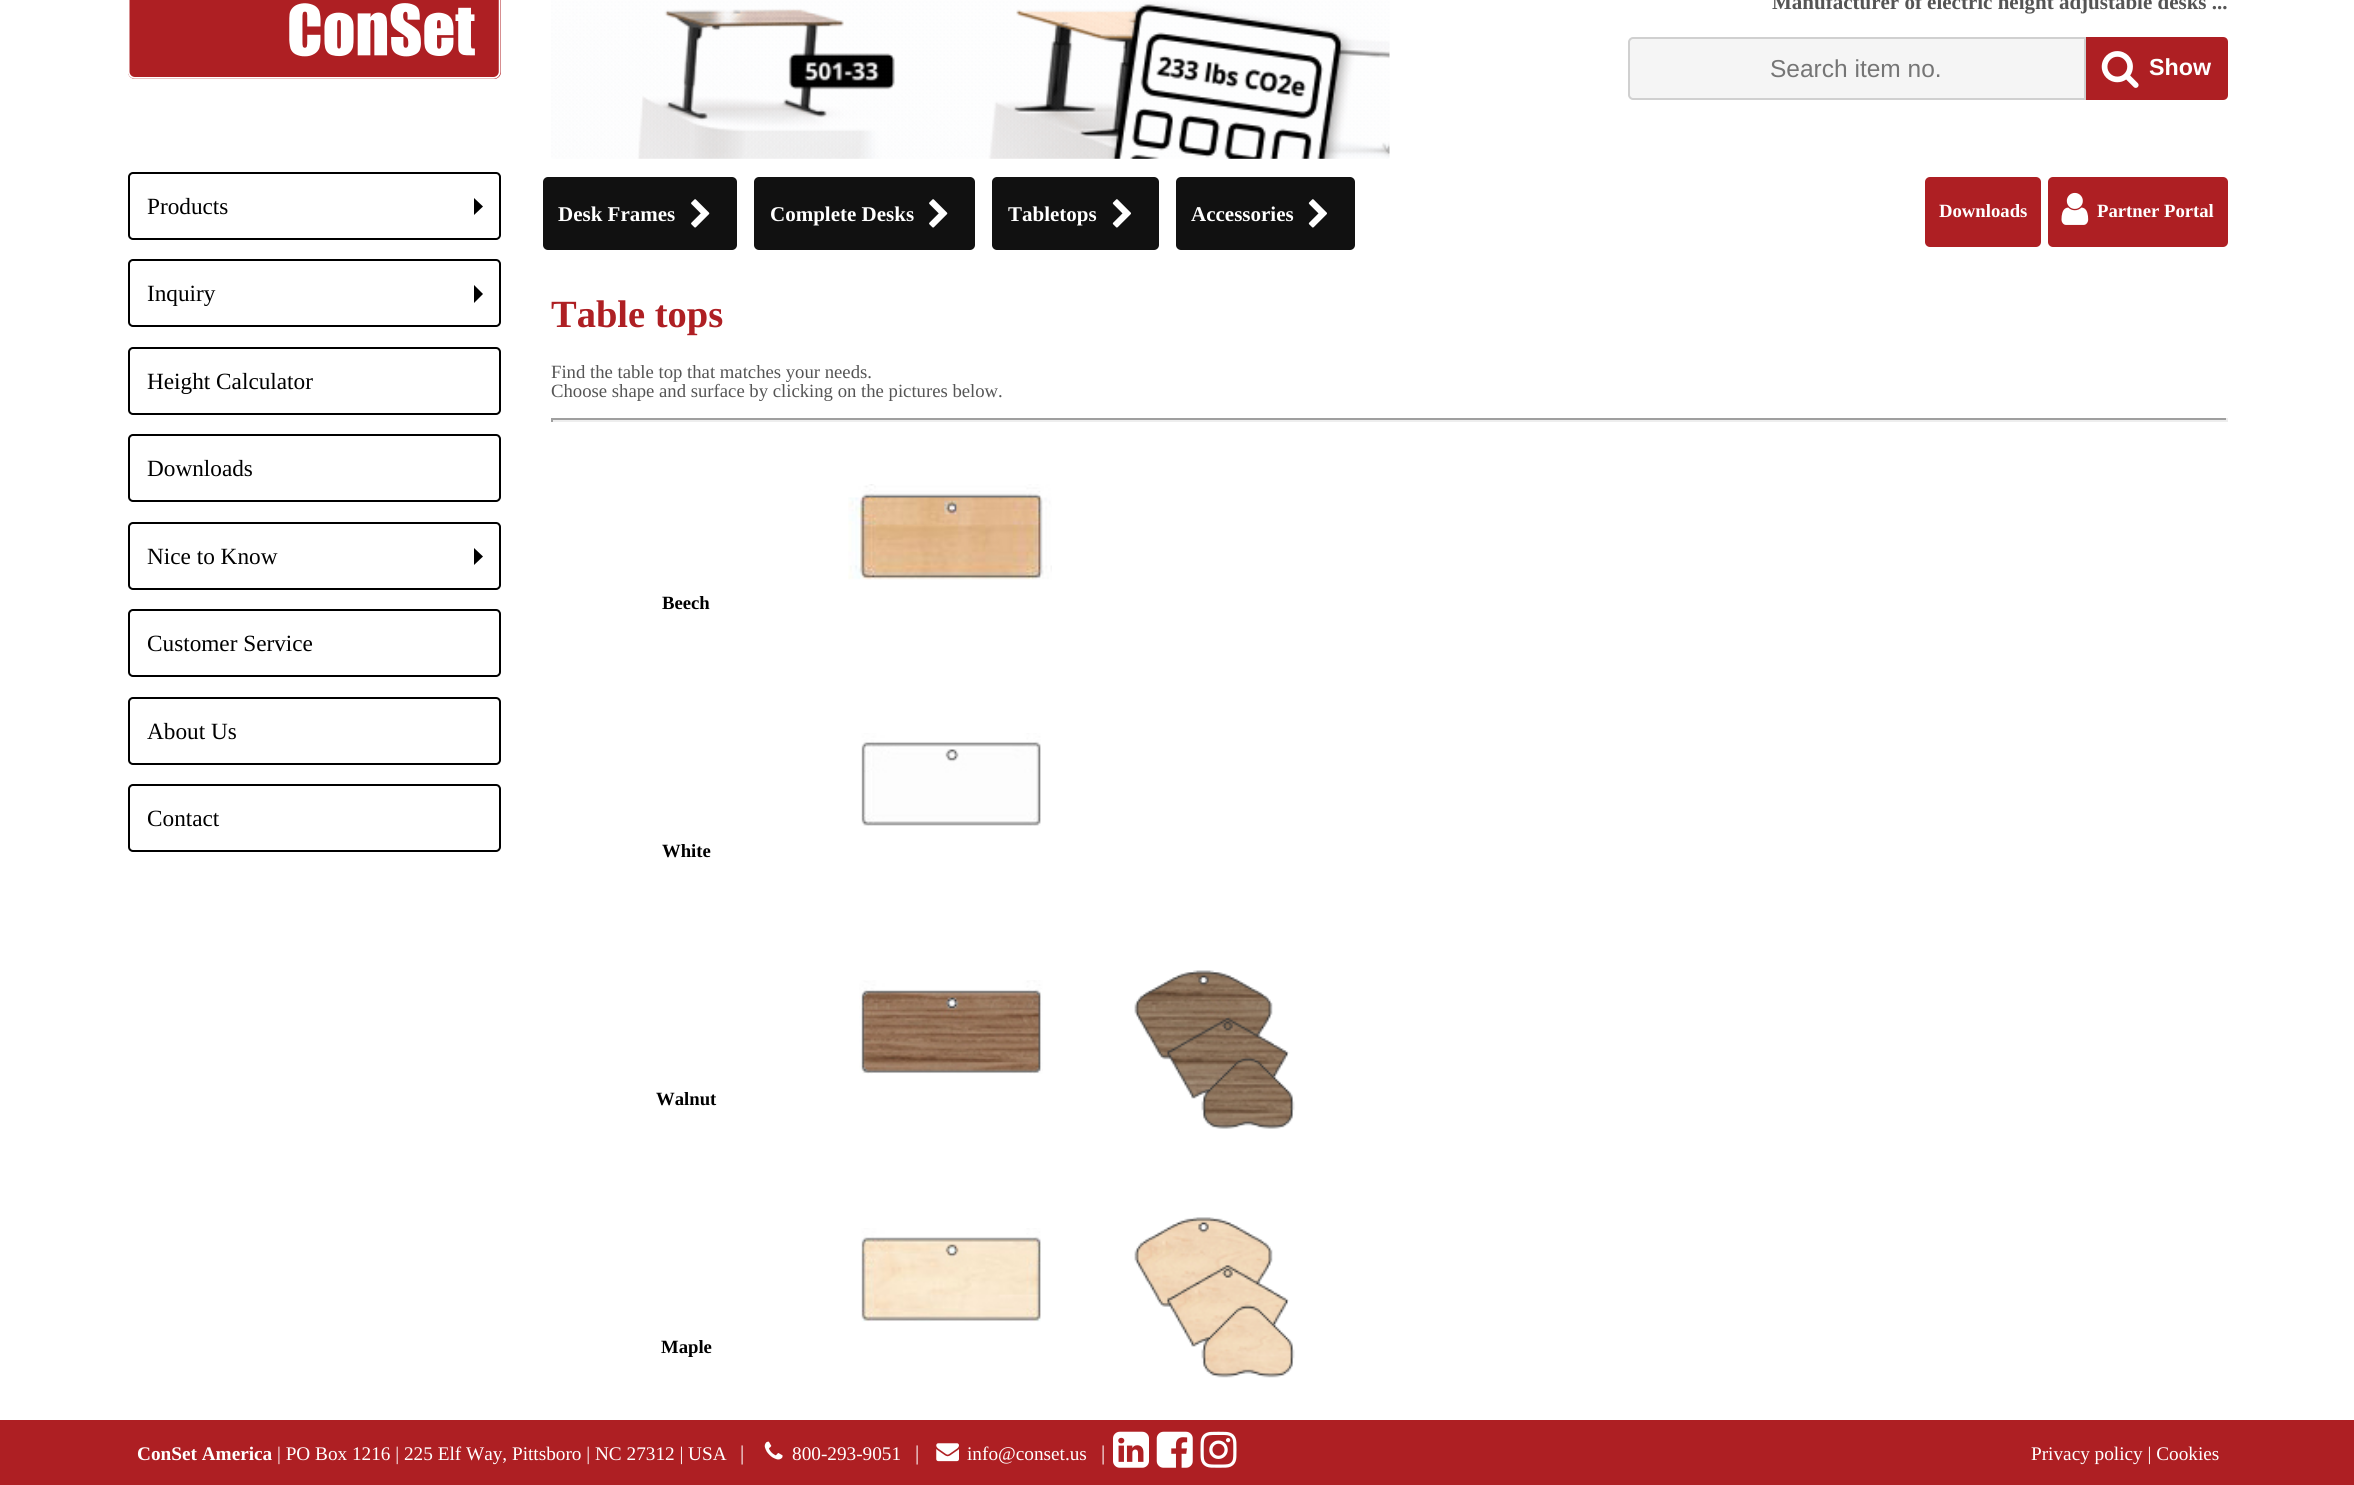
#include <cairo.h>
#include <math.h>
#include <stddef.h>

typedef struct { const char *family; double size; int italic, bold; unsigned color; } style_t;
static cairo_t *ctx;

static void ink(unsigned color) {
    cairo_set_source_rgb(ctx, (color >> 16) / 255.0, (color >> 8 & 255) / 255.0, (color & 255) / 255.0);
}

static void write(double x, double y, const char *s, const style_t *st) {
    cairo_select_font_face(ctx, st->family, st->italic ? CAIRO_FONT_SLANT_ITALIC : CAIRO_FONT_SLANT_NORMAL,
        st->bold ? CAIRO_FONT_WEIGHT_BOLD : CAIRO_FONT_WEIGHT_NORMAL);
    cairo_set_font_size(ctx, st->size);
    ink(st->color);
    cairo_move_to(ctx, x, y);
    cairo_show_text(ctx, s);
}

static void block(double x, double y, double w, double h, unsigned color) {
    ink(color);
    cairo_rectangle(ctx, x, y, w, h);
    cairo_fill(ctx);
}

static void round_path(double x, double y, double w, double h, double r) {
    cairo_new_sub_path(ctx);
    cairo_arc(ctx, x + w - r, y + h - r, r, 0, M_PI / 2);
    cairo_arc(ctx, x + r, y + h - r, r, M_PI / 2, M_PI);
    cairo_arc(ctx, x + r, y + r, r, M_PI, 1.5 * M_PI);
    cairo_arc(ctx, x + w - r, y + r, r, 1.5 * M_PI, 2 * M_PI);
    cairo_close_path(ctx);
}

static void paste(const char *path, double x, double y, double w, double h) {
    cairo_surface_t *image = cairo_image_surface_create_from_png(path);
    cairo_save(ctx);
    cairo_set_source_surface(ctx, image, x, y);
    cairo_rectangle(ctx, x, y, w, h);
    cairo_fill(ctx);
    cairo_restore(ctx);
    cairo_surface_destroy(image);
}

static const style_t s1 = {"Liberation Serif", 23.25, 0, 0, 0x000000};
static const style_t s2 = {"Liberation Serif", 21, 0, 1, 0x555555};
static const style_t s3 = {"Liberation Sans", 24.5, 0, 0, 0x757575};
static const style_t s4 = {"Liberation Sans", 23.25, 0, 1, 0xffffff};
static const style_t s5 = {"Liberation Serif", 21, 0, 1, 0xffffff};
static const style_t s6 = {"Liberation Serif", 18.7, 0, 1, 0xffffff};
static const style_t s7 = {"Liberation Serif", 38.5, 0, 1, 0xae1f23};
static const style_t s8 = {"Liberation Serif", 18.7, 0, 0, 0x555555};
static const style_t s9 = {"Liberation Serif", 18.7, 0, 1, 0x000000};
static const style_t s10 = {"Liberation Serif", 19.25, 0, 1, 0xffffff};
static const style_t s11 = {"Liberation Serif", 19.25, 0, 0, 0xffffff};
static const style_t s12 = {"Liberation Serif", 21, 0, 0, 0xffffff};

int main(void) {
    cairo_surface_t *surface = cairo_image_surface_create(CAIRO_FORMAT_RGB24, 2354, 1485);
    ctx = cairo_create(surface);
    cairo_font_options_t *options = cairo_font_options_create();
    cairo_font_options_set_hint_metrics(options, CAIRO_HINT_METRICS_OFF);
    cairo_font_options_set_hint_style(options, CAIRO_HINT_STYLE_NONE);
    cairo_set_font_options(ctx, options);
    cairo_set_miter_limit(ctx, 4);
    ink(0xffffff);
    cairo_paint(ctx);
    ink(0xae1f23);
    round_path(128, -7, 373, 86, 7);
    cairo_fill(ctx);
    paste("pic1.png", 128, 0, 373, 79);
    round_path(129, 173, 371, 66, 4);
    ink(0x000000);
    cairo_stroke(ctx);
    write(147, 214, "Products", &s1);
    cairo_new_path(ctx);
    cairo_move_to(ctx, 474, 215);
    cairo_line_to(ctx, 474, 198);
    cairo_line_to(ctx, 483, 206.5);
    cairo_close_path(ctx);
    cairo_fill(ctx);
    round_path(129, 260, 371, 66, 4);
    cairo_stroke(ctx);
    write(147, 301, "Inquiry", &s1);
    cairo_new_path(ctx);
    cairo_move_to(ctx, 474, 303);
    cairo_line_to(ctx, 474, 285);
    cairo_line_to(ctx, 483, 294);
    cairo_close_path(ctx);
    cairo_fill(ctx);
    round_path(129, 348, 371, 66, 4);
    cairo_stroke(ctx);
    write(147, 389, "Height Calculator", &s1);
    round_path(129, 435, 371, 66, 4);
    cairo_stroke(ctx);
    write(147, 476, "Downloads", &s1);
    round_path(129, 523, 371, 66, 4);
    cairo_stroke(ctx);
    write(147, 564, "Nice to Know", &s1);
    cairo_new_path(ctx);
    cairo_move_to(ctx, 474, 565);
    cairo_line_to(ctx, 474, 548);
    cairo_line_to(ctx, 483, 556.5);
    cairo_close_path(ctx);
    cairo_fill(ctx);
    round_path(129, 610, 371, 66, 4);
    cairo_stroke(ctx);
    write(147, 651, "Customer Service", &s1);
    round_path(129, 698, 371, 66, 4);
    cairo_stroke(ctx);
    write(147, 739, "About Us", &s1);
    round_path(129, 785, 371, 66, 4);
    cairo_stroke(ctx);
    write(147, 826, "Contact", &s1);
    paste("pic2.png", 551, 0, 839, 159);
    write(1772, 9, "Manufacturer of electric height adjustable desks ...", &s2);
    ink(0xf5f5f5);
    cairo_new_path(ctx);
    cairo_move_to(ctx, 1633, 37);
    cairo_line_to(ctx, 2086, 37);
    cairo_line_to(ctx, 2086, 100);
    cairo_line_to(ctx, 1633, 100);
    cairo_curve_to(ctx, 1630, 100, 1628, 98, 1628, 95);
    cairo_line_to(ctx, 1628, 42);
    cairo_curve_to(ctx, 1628, 39, 1630, 37, 1633, 37);
    cairo_close_path(ctx);
    cairo_fill(ctx);
    cairo_new_path(ctx);
    cairo_move_to(ctx, 1633, 38);
    cairo_line_to(ctx, 2085, 38);
    cairo_line_to(ctx, 2085, 99);
    cairo_line_to(ctx, 1633, 99);
    cairo_curve_to(ctx, 1631, 99, 1629, 97, 1629, 95);
    cairo_line_to(ctx, 1629, 42);
    cairo_curve_to(ctx, 1629, 40, 1631, 38, 1633, 38);
    cairo_close_path(ctx);
    cairo_set_source_rgba(ctx, 0, 0, 0, 0.15);
    cairo_stroke(ctx);
    write(1770, 77, "Search item no.", &s3);
    ink(0xae1f23);
    cairo_new_path(ctx);
    cairo_move_to(ctx, 2086, 37);
    cairo_line_to(ctx, 2223, 37);
    cairo_curve_to(ctx, 2226, 37, 2228, 39, 2228, 42);
    cairo_line_to(ctx, 2228, 95);
    cairo_curve_to(ctx, 2228, 98, 2226, 100, 2223, 100);
    cairo_line_to(ctx, 2086, 100);
    cairo_close_path(ctx);
    cairo_fill(ctx);
    paste("pic3.png", 2101, 51, 38, 37);
    write(2149, 75, "Show", &s4);
    ink(0x111111);
    round_path(543, 177, 194, 73, 5);
    cairo_fill(ctx);
    write(558, 221, "Desk Frames", &s5);
    paste("pic4.png", 691, 199, 19, 29);
    ink(0x111111);
    round_path(754, 177, 221, 73, 5);
    cairo_fill(ctx);
    write(770, 221, "Complete Desks", &s5);
    paste("pic4.png", 929, 199, 19, 29);
    ink(0x111111);
    round_path(992, 177, 167, 73, 5);
    cairo_fill(ctx);
    write(1008, 221, "Tabletops", &s5);
    paste("pic5.png", 1112, 199, 19, 29);
    ink(0x111111);
    round_path(1176, 177, 179, 73, 5);
    cairo_fill(ctx);
    write(1191, 221, "Accessories", &s5);
    paste("pic5.png", 1308, 199, 19, 29);
    ink(0xae1f23);
    round_path(1925, 177, 116, 70, 5);
    cairo_fill(ctx);
    write(1939, 217, "Downloads", &s6);
    ink(0xae1f23);
    round_path(2048, 177, 180, 70, 5);
    cairo_fill(ctx);
    paste("pic6.png", 2061, 192, 28, 33);
    write(2097, 217, "Partner Portal", &s6);
    write(551, 327, "Table tops", &s7);
    write(551, 378, "Find the table top that matches your needs.", &s8);
    write(551, 397, "Choose shape and surface by clicking on the pictures below.", &s8);
    block(551, 418, 1677, 2, 0x9f9f9f);
    block(2226, 418, 2, 4, 0xeeeeee);
    block(551, 420, 1677, 2, 0xeeeeee);
    block(551, 418, 2, 4, 0x9f9f9f);
    paste("pic7.png", 848, 484, 204, 96);
    write(662, 609, "Beech", &s9);
    paste("pic8.png", 861, 733, 180, 93);
    write(662, 857, "White", &s9);
    paste("pic9.png", 859, 980, 184, 94);
    paste("pic10.png", 1134, 970, 161, 159);
    write(656, 1105, "Walnut", &s9);
    paste("pic11.png", 861, 1228, 180, 94);
    paste("pic12.png", 1134, 1217, 161, 161);
    write(661, 1353, "Maple", &s9);
    block(0, 1420, 2354, 65, 0xae1f23);
    write(137, 1460, "ConSet America", &s10);
    write(277, 1460, "| PO Box 1216 | 225 Elf Way, Pittsboro | NC 27312 | USA", &s11);
    write(740, 1460, "|", &s12);
    paste("pic13.png", 764, 1441, 19, 19);
    write(792, 1460, "800-293-9051", &s11);
    write(915, 1460, "|", &s12);
    paste("pic14.png", 936, 1443, 23, 19);
    write(967, 1460, "info@conset.us", &s11);
    write(1101, 1460, "|", &s12);
    paste("pic15.png", 1113, 1431, 36, 37);
    paste("pic16.png", 1156, 1431, 37, 37);
    paste("pic17.png", 1200, 1431, 37, 37);
    write(2031, 1460, "Privacy policy | Cookies", &s11);
    cairo_surface_write_to_png(surface, "screenshot.png");
    cairo_font_options_destroy(options);
    cairo_destroy(ctx);
    cairo_surface_destroy(surface);
    return 0;
}
